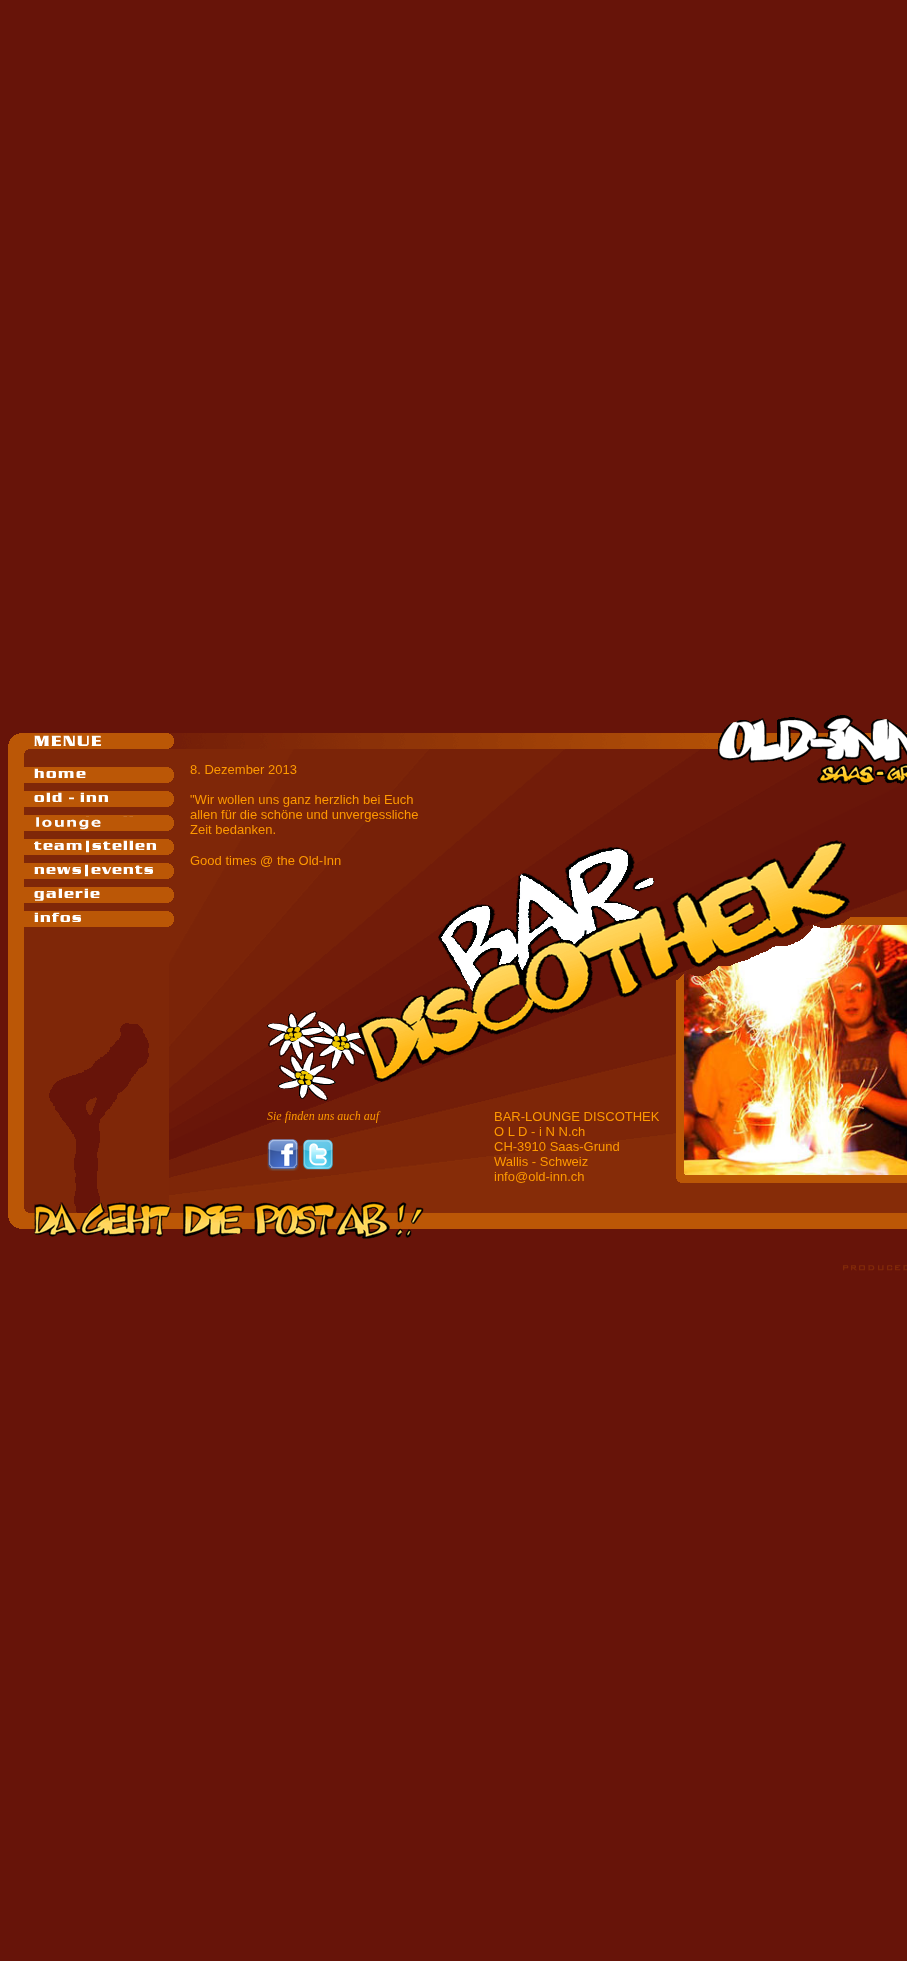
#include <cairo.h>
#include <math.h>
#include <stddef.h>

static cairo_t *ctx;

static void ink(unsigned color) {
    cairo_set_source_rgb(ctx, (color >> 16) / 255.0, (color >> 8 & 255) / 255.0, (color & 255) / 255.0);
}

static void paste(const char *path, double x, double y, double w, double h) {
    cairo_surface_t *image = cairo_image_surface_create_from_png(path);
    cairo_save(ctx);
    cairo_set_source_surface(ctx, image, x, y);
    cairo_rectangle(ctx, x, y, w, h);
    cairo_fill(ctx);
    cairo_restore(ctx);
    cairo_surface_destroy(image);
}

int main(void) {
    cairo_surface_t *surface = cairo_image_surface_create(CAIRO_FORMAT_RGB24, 907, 1961);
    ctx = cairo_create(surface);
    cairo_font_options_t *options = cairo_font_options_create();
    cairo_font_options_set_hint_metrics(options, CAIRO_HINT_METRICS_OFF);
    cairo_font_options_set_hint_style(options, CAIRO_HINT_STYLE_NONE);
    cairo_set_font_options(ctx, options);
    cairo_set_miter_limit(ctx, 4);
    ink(0x671409);
    cairo_paint(ctx);
    paste("pic1.png", 8, 715, 899, 556);
    cairo_surface_write_to_png(surface, "screenshot.png");
    cairo_font_options_destroy(options);
    cairo_destroy(ctx);
    cairo_surface_destroy(surface);
    return 0;
}
